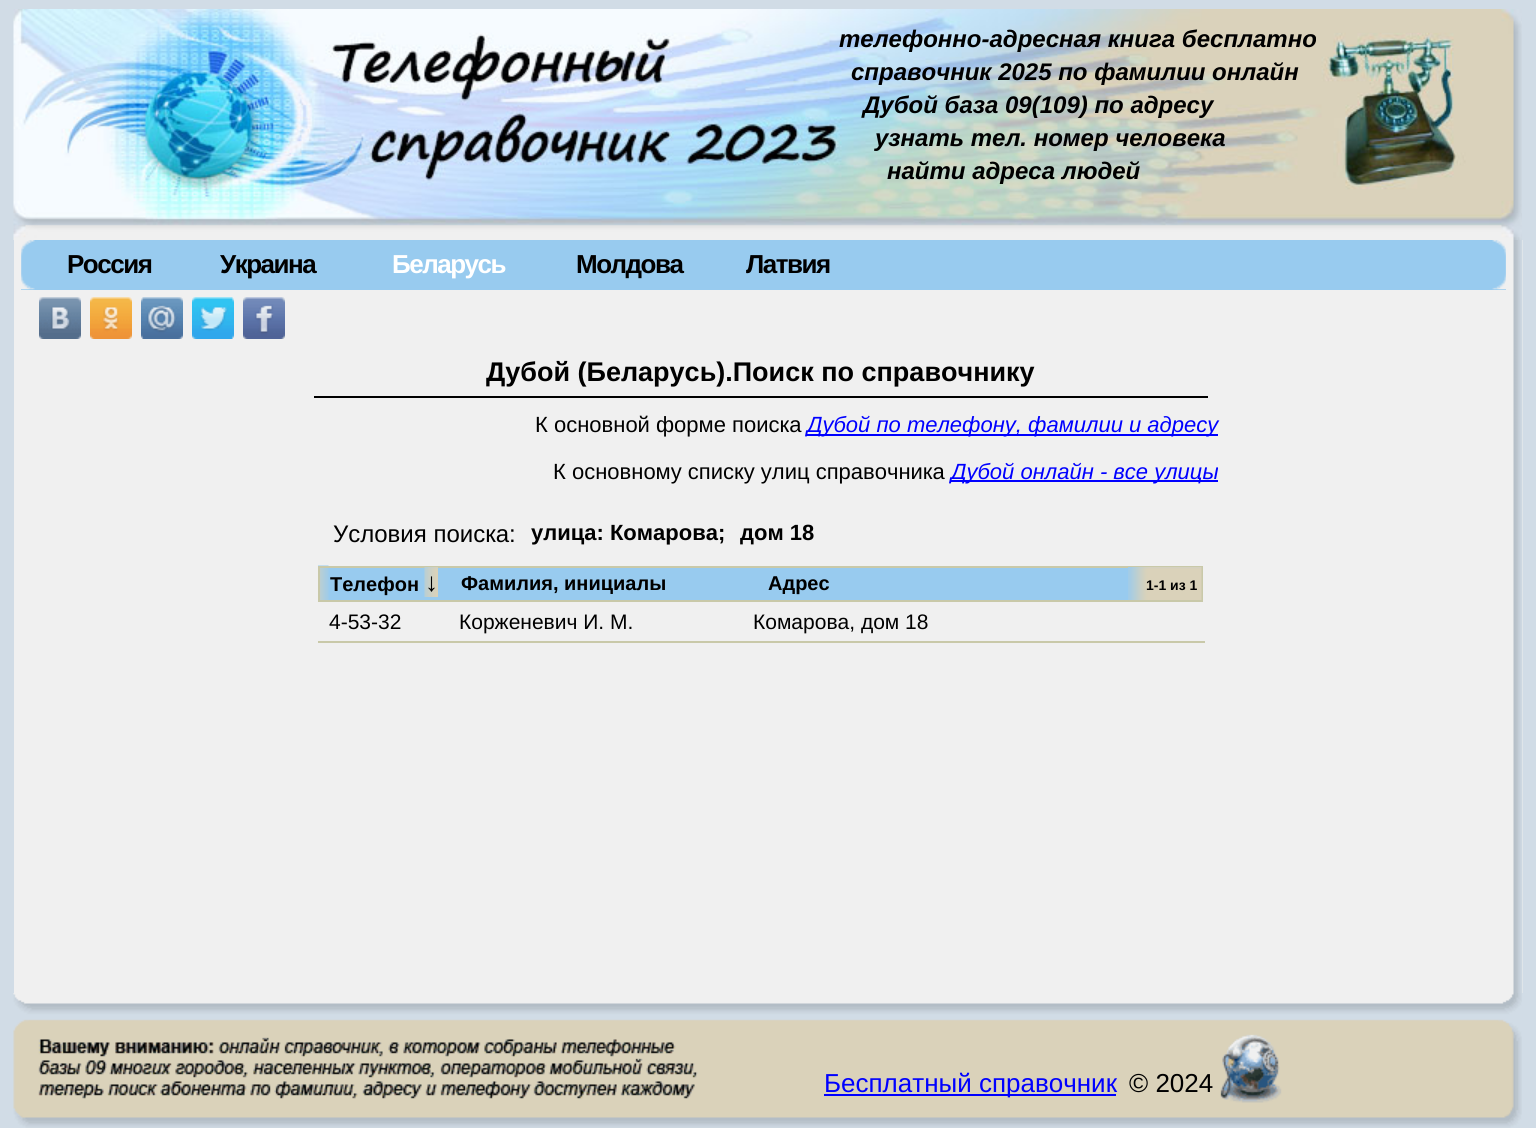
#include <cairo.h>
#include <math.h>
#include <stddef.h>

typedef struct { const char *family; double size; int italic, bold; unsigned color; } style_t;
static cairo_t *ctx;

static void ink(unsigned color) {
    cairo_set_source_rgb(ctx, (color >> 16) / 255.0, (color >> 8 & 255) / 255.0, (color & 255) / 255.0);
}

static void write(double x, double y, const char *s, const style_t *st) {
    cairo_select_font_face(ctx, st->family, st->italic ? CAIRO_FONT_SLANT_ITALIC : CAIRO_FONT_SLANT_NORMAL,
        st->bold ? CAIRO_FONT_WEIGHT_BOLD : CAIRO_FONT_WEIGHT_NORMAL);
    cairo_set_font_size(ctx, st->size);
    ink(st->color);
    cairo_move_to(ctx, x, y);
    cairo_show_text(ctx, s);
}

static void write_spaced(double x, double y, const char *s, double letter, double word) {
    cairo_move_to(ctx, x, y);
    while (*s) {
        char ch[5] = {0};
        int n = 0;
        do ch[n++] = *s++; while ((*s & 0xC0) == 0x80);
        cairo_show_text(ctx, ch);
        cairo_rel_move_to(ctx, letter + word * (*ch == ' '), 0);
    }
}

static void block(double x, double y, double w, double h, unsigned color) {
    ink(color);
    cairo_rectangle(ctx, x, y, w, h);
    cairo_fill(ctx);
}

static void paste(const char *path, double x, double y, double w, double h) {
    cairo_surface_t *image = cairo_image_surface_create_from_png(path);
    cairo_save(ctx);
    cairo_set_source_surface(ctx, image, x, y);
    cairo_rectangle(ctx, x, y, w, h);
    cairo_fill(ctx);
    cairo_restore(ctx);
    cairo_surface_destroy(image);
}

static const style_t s1 = {"Liberation Sans", 24, 1, 1, 0x000000};
static const style_t s2 = {"Liberation Sans", 27, 0, 1, 0x000000};
static const style_t s3 = {"Liberation Sans", 22, 0, 0, 0x000000};
static const style_t s4 = {"Liberation Sans", 22, 1, 0, 0x0000ff};
static const style_t s5 = {"Liberation Sans", 24, 0, 0, 0x000000};
static const style_t s6 = {"Liberation Sans", 22, 0, 1, 0x000000};
static const style_t s7 = {"Liberation Sans", 20, 0, 1, 0x000000};
static const style_t s8 = {"Liberation Sans", 26, 0, 1, 0x000000};
static const style_t s9 = {"Liberation Sans", 14, 0, 1, 0x000000};
static const style_t s10 = {"Liberation Sans", 21, 0, 0, 0x000000};
static const style_t s11 = {"Liberation Sans", 26, 0, 0, 0x0000ff};
static const style_t s12 = {"Liberation Sans", 26, 0, 0, 0x000000};

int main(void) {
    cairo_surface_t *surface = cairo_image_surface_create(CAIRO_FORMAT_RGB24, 1536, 1128);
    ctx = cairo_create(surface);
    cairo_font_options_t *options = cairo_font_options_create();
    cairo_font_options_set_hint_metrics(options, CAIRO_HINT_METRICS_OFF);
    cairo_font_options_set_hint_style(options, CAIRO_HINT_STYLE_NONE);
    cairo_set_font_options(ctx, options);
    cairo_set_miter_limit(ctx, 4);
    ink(0xd1dce6);
    cairo_paint(ctx);
    block(14, 240, 1509, 753, 0xf0f0f0);
    paste("pic1.png", 1513, 879, 10, 114);
    paste("pic2.png", 13, 9, 1509, 231);
    write(839, 47, "телефонно-адресная книга бесплатно", &s1);
    write(851, 80, "справочник 2025 по фамилии онлайн", &s1);
    write(863, 113, "Дубой база 09(109) по адресу", &s1);
    write(875, 146, "узнать тел. номер человека", &s1);
    write(887, 179, "найти адреса людей", &s1);
    paste("pic3.png", 1513, 240, 10, 639);
    block(21, 240, 1485, 50, 0x98cbef);
    paste("pic4.png", 21, 240, 14, 50);
    cairo_select_font_face(ctx, "Liberation Sans", CAIRO_FONT_SLANT_NORMAL, CAIRO_FONT_WEIGHT_BOLD);
    cairo_set_font_size(ctx, 26);
    ink(0x000000);
    write_spaced(67, 273, "Россия", -1.5, 0);
    write_spaced(220, 273, "Украина", -1.5, 0);
    ink(0xffffff);
    write_spaced(392, 273, "Беларусь", -1.5, 0);
    ink(0x000000);
    write_spaced(576, 273, "Молдова", -1.5, 0);
    write_spaced(746, 273, "Латвия", -1.5, 0);
    paste("pic5.png", 1492, 240, 14, 50);
    paste("pic6.png", 39, 297, 42, 42);
    paste("pic7.png", 90, 297, 42, 42);
    paste("pic8.png", 141, 297, 42, 42);
    paste("pic9.png", 192, 297, 42, 42);
    paste("pic10.png", 243, 297, 42, 42);
    block(314, 396, 894, 2, 0x000000);
    write(486, 381, "Дубой (Беларусь).Поиск по справочнику", &s2);
    write(535, 432, "К основной форме поиска", &s3);
    block(807, 434, 411, 2, 0x0000ff);
    write(807, 432, "Дубой по телефону, фамилии и адресу", &s4);
    write(553, 479, "К основному списку улиц справочника", &s3);
    block(951, 480, 267, 2, 0x0000ff);
    write(951, 479, "Дубой онлайн - все улицы", &s4);
    write(333, 542, "Условия поиска:", &s5);
    write(531, 540, "улица: Комарова;", &s6);
    write(740, 540, "дом 18", &s6);
    block(328, 568, 800, 32, 0x98cbef);
    paste("pic11.png", 318, 565, 11, 35);
    cairo_rectangle(ctx, 319, 567, 883, 34);
    ink(0xc9c9a9);
    cairo_stroke(ctx);
    write(330, 591, "Телефон", &s7);
    paste("pic12.png", 424, 567, 14, 30);
    write(425, 591, "↓", &s8);
    write(461, 590, "Фамилия, инициалы", &s7);
    write(768, 590, "Адрес", &s7);
    paste("pic13.png", 1128, 567, 74, 33);
    write(1146, 590, "1-1 из 1", &s9);
    write(329, 629, "4-53-32", &s10);
    write(459, 629, "Корженевич И. М.", &s10);
    block(318, 641, 887, 2, 0xc9c9a9);
    write(753, 629, "Комарова, дом 18", &s10);
    paste("pic14.png", 13, 993, 1509, 135);
    block(824, 1094, 292, 2, 0x0000ff);
    write(824, 1092, "Бесплатный справочник", &s11);
    write(1129, 1092, "© 2024", &s12);
    cairo_surface_write_to_png(surface, "screenshot.png");
    cairo_font_options_destroy(options);
    cairo_destroy(ctx);
    cairo_surface_destroy(surface);
    return 0;
}
